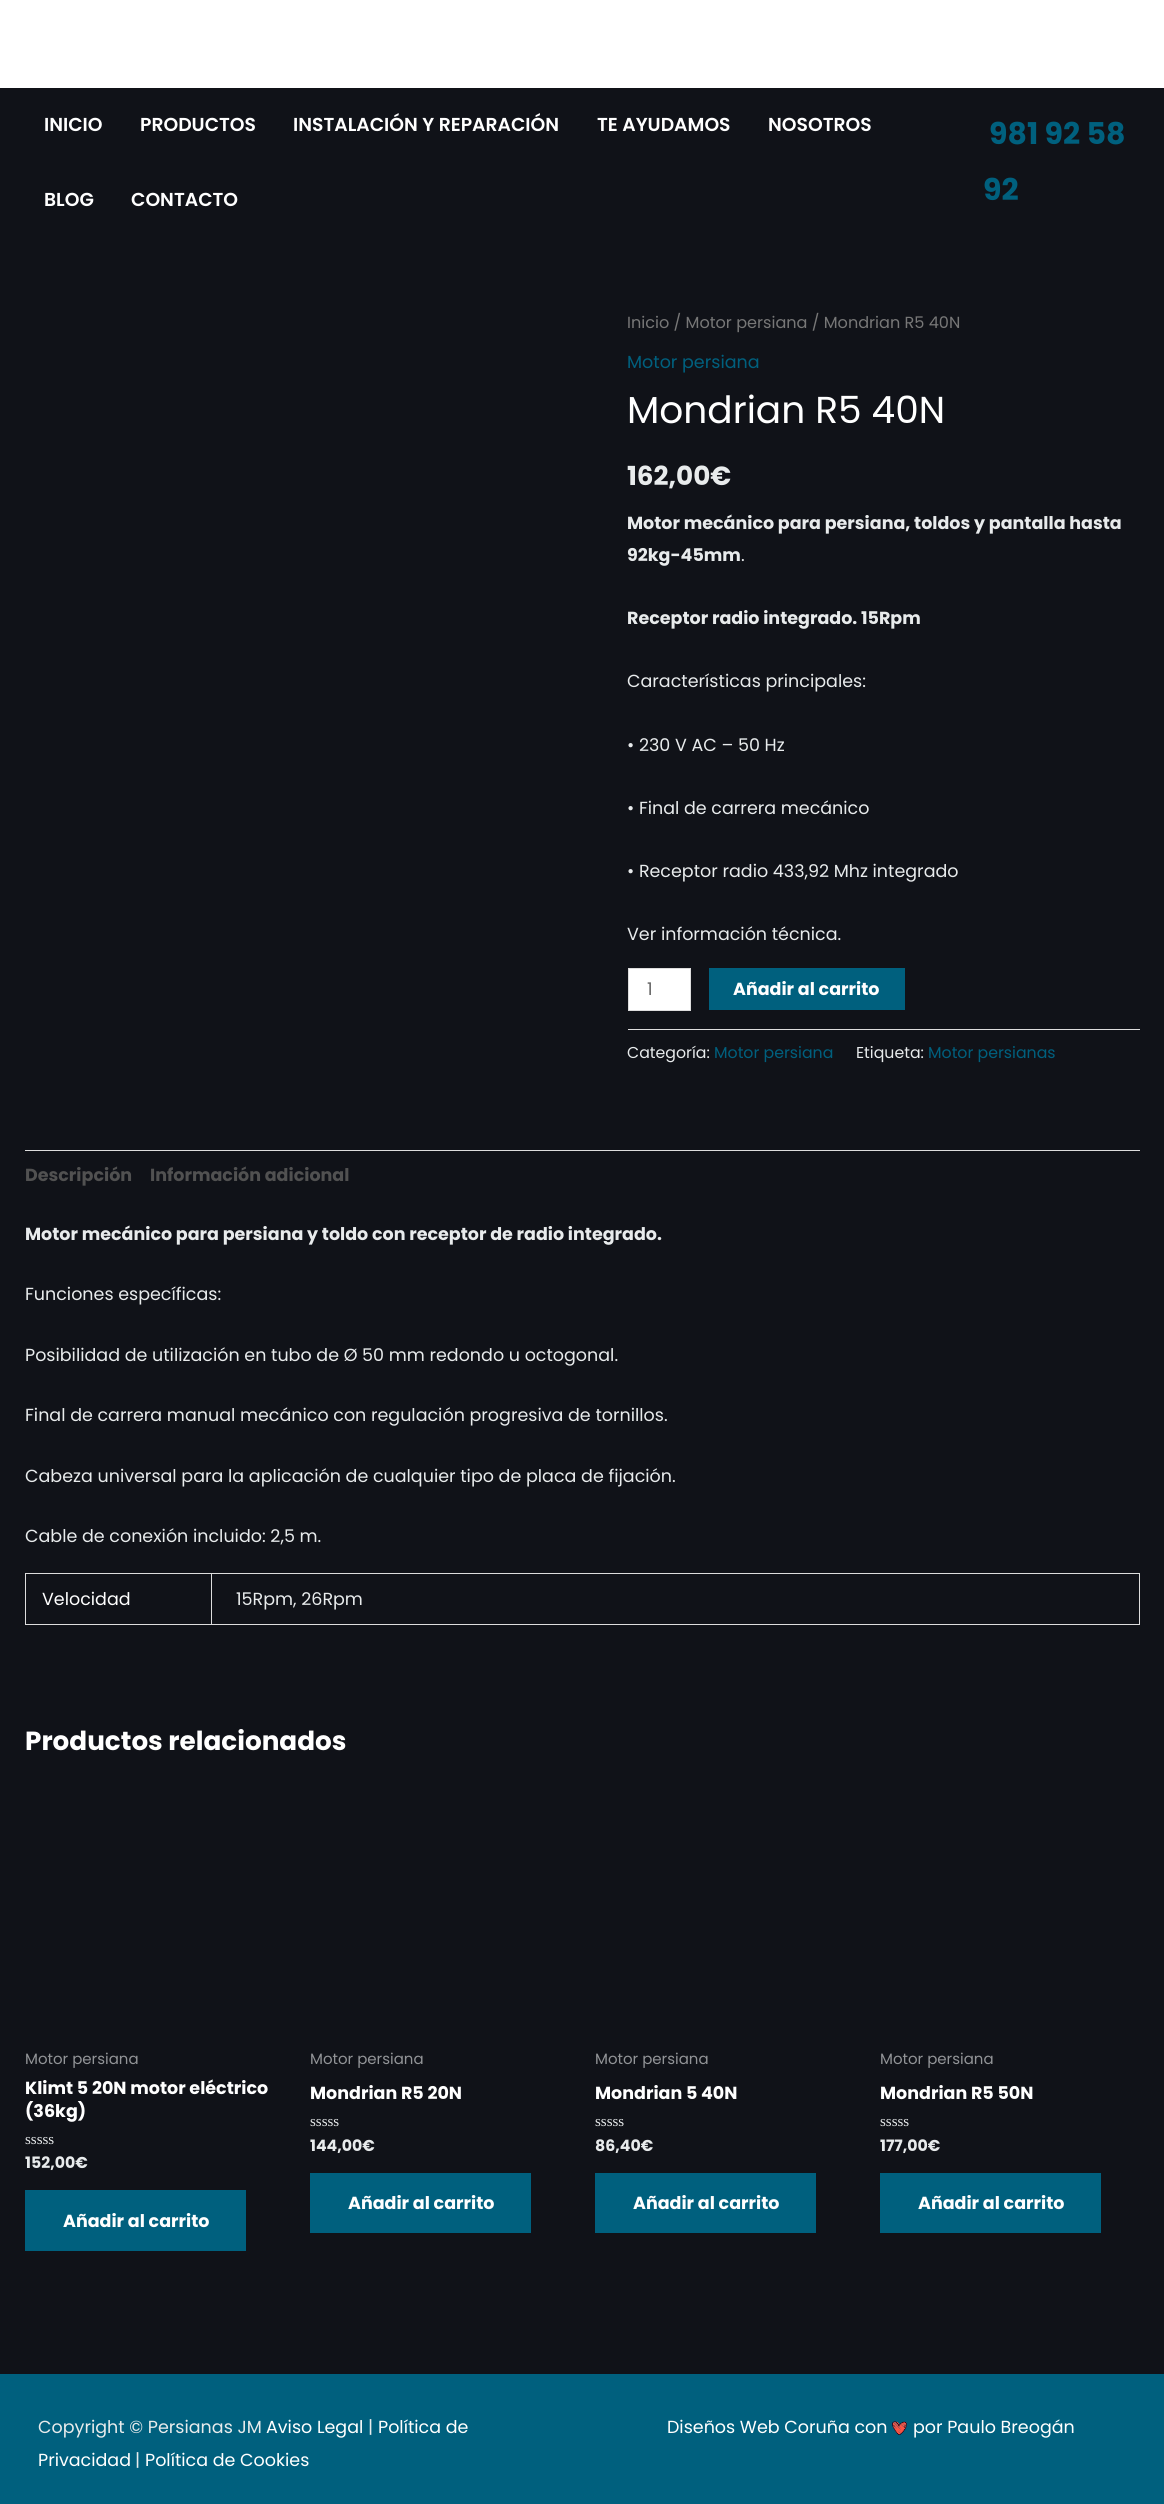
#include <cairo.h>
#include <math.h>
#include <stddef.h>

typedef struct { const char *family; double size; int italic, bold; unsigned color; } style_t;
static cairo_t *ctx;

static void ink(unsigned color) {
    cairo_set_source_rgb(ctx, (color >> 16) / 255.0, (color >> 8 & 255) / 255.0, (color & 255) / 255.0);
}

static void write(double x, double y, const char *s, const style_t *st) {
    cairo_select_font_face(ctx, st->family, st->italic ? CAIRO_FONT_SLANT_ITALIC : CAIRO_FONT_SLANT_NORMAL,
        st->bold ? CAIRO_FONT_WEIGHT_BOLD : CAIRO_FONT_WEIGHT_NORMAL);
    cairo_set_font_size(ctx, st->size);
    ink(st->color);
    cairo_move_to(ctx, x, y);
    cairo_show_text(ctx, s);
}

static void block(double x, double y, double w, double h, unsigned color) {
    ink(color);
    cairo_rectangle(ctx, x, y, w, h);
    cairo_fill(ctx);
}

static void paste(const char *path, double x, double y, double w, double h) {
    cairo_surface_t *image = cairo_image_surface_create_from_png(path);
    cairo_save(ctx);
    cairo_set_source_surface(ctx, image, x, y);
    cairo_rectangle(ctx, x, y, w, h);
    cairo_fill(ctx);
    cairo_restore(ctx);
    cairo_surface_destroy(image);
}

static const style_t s1 = {"Poppins SemiBold", 18.75, 0, 0, 0xffffff};
static const style_t s2 = {"Poppins", 30, 0, 1, 0x00607e};
static const style_t s3 = {"Poppins", 16.1, 0, 0, 0x777777};
static const style_t s4 = {"Poppins", 17.5, 0, 0, 0x00607e};
static const style_t s5 = {"Poppins", 37.5, 0, 0, 0xffffff};
static const style_t s6 = {"Poppins", 26.25, 0, 1, 0xe8ebec};
static const style_t s7 = {"Poppins", 17.5, 0, 1, 0xe8ebec};
static const style_t s8 = {"Poppins", 17.5, 0, 0, 0xe8ebec};
static const style_t s9 = {"Poppins", 17.5, 0, 0, 0x666666};
static const style_t s10 = {"Poppins", 17.5, 0, 1, 0xffffff};
static const style_t s11 = {"Poppins", 15.75, 0, 0, 0xe8ebec};
static const style_t s12 = {"Poppins", 15.75, 0, 0, 0x00607e};
static const style_t s13 = {"Poppins", 17.5, 0, 1, 0x515151};
static const style_t s14 = {"Poppins", 17.5, 0, 0, 0xffffff};
static const style_t s15 = {"Poppins", 26.25, 0, 1, 0xffffff};
static const style_t s16 = {"Poppins", 15, 0, 0, 0x929497};
static const style_t s17 = {"Liberation Serif", 15, 0, 0, 0xe8ebec};
static const style_t s18 = {"Poppins", 15.75, 0, 1, 0xe8ebec};

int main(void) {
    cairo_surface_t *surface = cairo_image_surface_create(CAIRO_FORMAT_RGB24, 1164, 2504);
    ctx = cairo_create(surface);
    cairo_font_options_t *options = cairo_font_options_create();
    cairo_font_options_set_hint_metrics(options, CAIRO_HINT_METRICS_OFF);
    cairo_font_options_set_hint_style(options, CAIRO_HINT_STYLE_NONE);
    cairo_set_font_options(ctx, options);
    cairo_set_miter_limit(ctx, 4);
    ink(0x101218);
    cairo_paint(ctx);
    block(0, 0, 1164, 88, 0xffffff);
    write(44, 131, "INICIO", &s1);
    write(140, 131, "PRODUCTOS", &s1);
    write(293, 131, "INSTALACIÓN Y REPARACIÓN", &s1);
    write(597, 131, "TE AYUDAMOS", &s1);
    write(768, 131, "NOSOTROS", &s1);
    write(44, 206, "BLOG", &s1);
    write(131, 206, "CONTACTO", &s1);
    write(989, 144, "981 92 58", &s2);
    write(983, 200, "92", &s2);
    write(627, 328, "Inicio / Motor persiana / Mondrian R5 40N", &s3);
    write(627, 368, "Motor persiana", &s4);
    write(627, 423, "Mondrian R5 40N", &s5);
    write(627, 485, "162,00€", &s6);
    write(627, 529, "Motor mecánico para persiana, toldos y pantalla hasta", &s7);
    write(627, 561, "92kg-45mm", &s7);
    write(741, 561, ".", &s8);
    write(627, 624, "Receptor radio integrado. 15Rpm", &s7);
    write(627, 687, "Características principales:", &s8);
    write(627, 751, "• 230 V AC – 50 Hz", &s8);
    write(627, 814, "• Final de carrera mecánico", &s8);
    write(627, 877, "• Receptor radio 433,92 Mhz integrado", &s8);
    write(627, 940, "Ver información técnica.", &s8);
    ink(0xffffff);
    cairo_rectangle(ctx, 628.5, 968.5, 62, 42);
    cairo_fill_preserve(ctx);
    ink(0xdddddd);
    cairo_set_line_width(ctx, 1);
    cairo_stroke(ctx);
    write(647, 995, "1", &s9);
    block(709, 968, 196, 42, 0x00607e);
    write(733, 995, "Añadir al carrito", &s10);
    block(628, 1029, 512, 1, 0xdddddd);
    write(627, 1058, "Categoría:", &s11);
    write(714, 1058, "Motor persiana", &s12);
    write(856, 1058, "Etiqueta:", &s11);
    write(928, 1058, "Motor persianas", &s12);
    block(25, 1150, 1115, 1, 0xdddddd);
    write(25, 1181, "Descripción", &s13);
    write(150, 1181, "Información adicional", &s13);
    write(25, 1240, "Motor mecánico para persiana y toldo con receptor de radio integrado.", &s7);
    write(25, 1300, "Funciones específicas:", &s8);
    write(25, 1361, "Posibilidad de utilización en tubo de Ø 50 mm redondo u octogonal.", &s8);
    write(25, 1421, "Final de carrera manual mecánico con regulación progresiva de tornillos.", &s8);
    write(25, 1482, "Cabeza universal para la aplicación de cualquier tipo de placa de fijación.", &s8);
    write(25, 1542, "Cable de conexión incluido: 2,5 m.", &s8);
    block(25, 1573, 1115, 1, 0xdddddd);
    block(211, 1574, 1, 51, 0xdddddd);
    block(25, 1624, 188, 1, 0xdddddd);
    block(25, 1574, 1, 51, 0xdddddd);
    write(42, 1605, "Velocidad", &s14);
    block(1139, 1574, 1, 51, 0xdddddd);
    block(213, 1624, 927, 1, 0xdddddd);
    write(236, 1605, "15Rpm, 26Rpm", &s8);
    write(25, 1750, "Productos relacionados", &s15);
    write(25, 2064, "Motor persiana", &s16);
    write(25, 2094, "Klimt 5 20N motor eléctrico", &s10);
    write(25, 2117, "(36kg)", &s10);
    write(25, 2144, "sssss", &s17);
    write(25, 2168, "152,00€", &s18);
    block(25, 2190, 221, 61, 0x00607e);
    write(63, 2227, "Añadir al carrito", &s10);
    write(310, 2064, "Motor persiana", &s16);
    write(310, 2099, "Mondrian R5 20N", &s10);
    write(310, 2126, "sssss", &s17);
    write(310, 2151, "144,00€", &s18);
    block(310, 2173, 221, 60, 0x00607e);
    write(348, 2209, "Añadir al carrito", &s10);
    write(595, 2064, "Motor persiana", &s16);
    write(595, 2099, "Mondrian 5 40N", &s10);
    write(595, 2126, "sssss", &s17);
    write(595, 2151, "86,40€", &s18);
    block(595, 2173, 221, 60, 0x00607e);
    write(633, 2209, "Añadir al carrito", &s10);
    write(880, 2064, "Motor persiana", &s16);
    write(880, 2099, "Mondrian R5 50N", &s10);
    write(880, 2126, "sssss", &s17);
    write(880, 2151, "177,00€", &s18);
    block(880, 2173, 221, 60, 0x00607e);
    write(918, 2209, "Añadir al carrito", &s10);
    block(0, 2374, 1164, 130, 0x00607e);
    write(38, 2433, "Copyright © Persianas JM", &s8);
    write(266, 2433, "Aviso Legal", &s14);
    write(368, 2433, "|", &s8);
    write(378, 2433, "Política de", &s14);
    write(38, 2466, "Privacidad", &s14);
    write(135, 2466, "|", &s8);
    write(145, 2466, "Política de Cookies", &s14);
    write(667, 2433, "Diseños Web Coruña con", &s14);
    paste("pic1.png", 892, 2421, 15, 14);
    write(913, 2433, "por Paulo Breogán", &s14);
    cairo_surface_write_to_png(surface, "screenshot.png");
    cairo_font_options_destroy(options);
    cairo_destroy(ctx);
    cairo_surface_destroy(surface);
    return 0;
}
